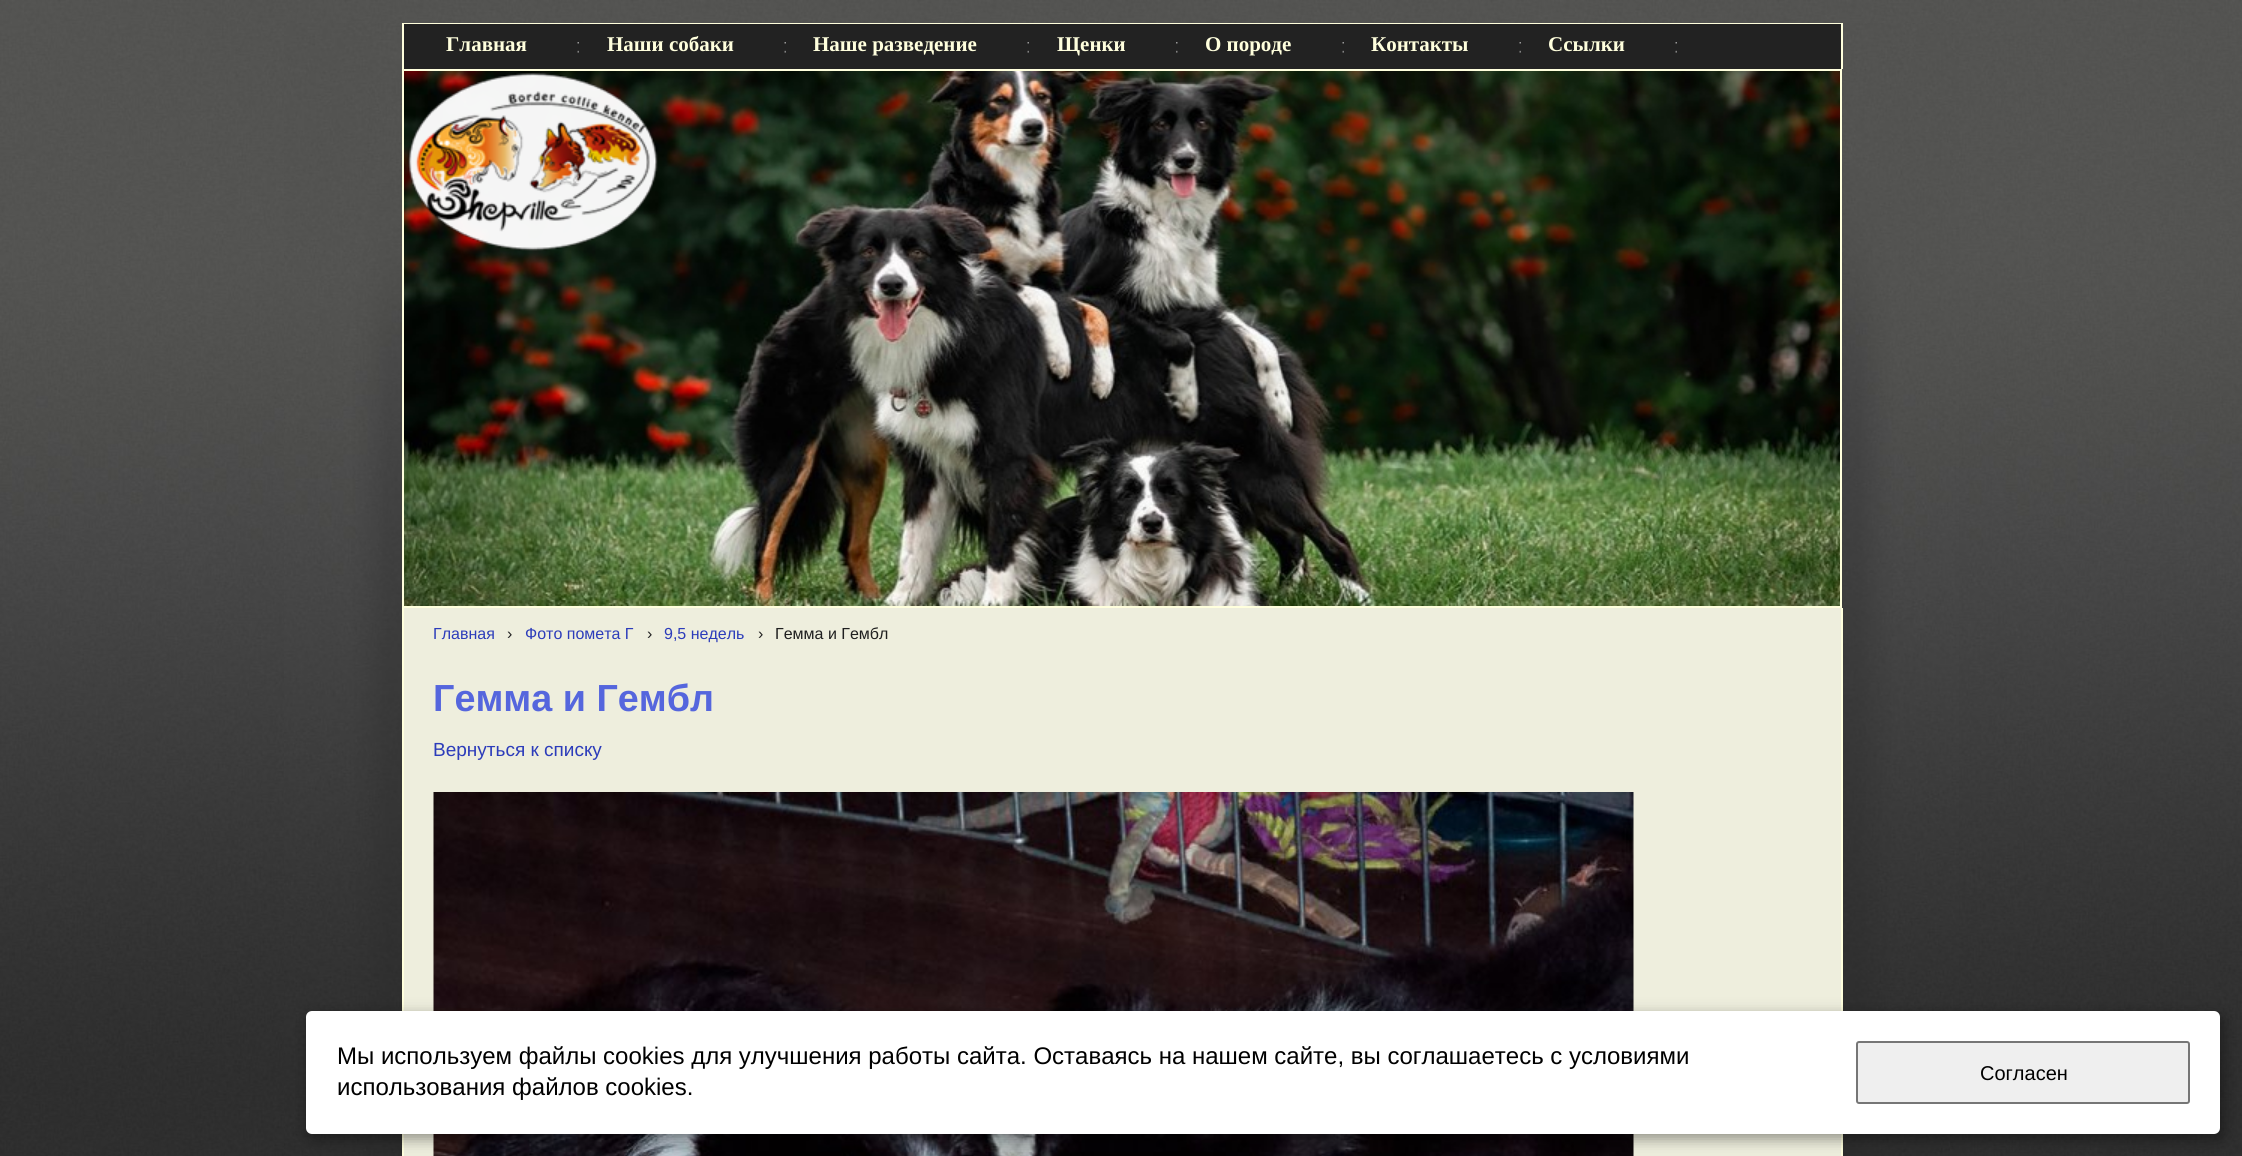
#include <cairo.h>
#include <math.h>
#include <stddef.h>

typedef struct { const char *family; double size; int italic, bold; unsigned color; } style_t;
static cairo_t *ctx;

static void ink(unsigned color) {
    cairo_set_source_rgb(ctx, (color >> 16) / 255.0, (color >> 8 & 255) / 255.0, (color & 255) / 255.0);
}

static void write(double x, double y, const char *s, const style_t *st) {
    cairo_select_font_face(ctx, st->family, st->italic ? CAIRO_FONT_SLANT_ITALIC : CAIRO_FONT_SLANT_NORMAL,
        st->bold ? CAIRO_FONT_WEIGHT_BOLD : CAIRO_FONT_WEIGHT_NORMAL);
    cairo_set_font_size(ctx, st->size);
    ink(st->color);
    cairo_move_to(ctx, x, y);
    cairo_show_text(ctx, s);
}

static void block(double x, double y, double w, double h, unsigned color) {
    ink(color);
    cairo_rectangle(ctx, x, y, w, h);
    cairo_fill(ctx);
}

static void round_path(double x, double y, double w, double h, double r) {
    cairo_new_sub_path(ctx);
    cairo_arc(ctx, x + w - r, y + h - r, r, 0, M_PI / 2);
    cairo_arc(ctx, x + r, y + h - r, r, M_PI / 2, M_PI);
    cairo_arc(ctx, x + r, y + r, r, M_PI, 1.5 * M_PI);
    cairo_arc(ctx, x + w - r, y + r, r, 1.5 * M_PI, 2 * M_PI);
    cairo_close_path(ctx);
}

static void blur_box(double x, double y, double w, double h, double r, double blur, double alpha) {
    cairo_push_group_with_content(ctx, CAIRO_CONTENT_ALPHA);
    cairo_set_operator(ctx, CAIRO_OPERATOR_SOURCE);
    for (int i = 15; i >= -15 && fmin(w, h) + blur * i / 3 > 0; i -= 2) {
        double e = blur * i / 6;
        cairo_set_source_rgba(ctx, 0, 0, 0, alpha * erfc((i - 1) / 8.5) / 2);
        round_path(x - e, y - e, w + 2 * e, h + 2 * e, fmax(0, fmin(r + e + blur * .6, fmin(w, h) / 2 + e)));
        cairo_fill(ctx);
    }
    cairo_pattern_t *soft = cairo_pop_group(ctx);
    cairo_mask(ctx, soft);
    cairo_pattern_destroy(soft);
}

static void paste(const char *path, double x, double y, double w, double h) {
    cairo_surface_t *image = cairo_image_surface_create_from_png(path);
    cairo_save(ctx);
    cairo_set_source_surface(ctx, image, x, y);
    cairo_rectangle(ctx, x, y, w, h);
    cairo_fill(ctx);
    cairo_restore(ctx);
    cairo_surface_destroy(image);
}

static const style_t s1 = {"Liberation Serif", 21, 0, 1, 0xffffdd};
static const style_t s2 = {"Liberation Sans", 16, 0, 0, 0x2c3cba};
static const style_t s3 = {"Liberation Sans", 16, 0, 0, 0x1f1f1f};
static const style_t s4 = {"Liberation Sans", 37.75, 0, 1, 0x5566dd};
static const style_t s5 = {"Liberation Sans", 19, 0, 0, 0x2c3cba};
static const style_t s6 = {"Liberation Sans", 24, 0, 0, 0x000000};
static const style_t s7 = {"Liberation Sans", 20, 0, 0, 0x000000};

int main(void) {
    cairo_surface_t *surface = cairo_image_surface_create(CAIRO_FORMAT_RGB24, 2242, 1156);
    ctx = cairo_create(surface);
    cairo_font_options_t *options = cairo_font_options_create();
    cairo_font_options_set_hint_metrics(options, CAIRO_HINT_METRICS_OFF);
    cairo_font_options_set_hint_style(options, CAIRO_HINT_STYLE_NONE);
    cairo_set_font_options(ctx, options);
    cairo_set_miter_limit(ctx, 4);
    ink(0xffffff);
    cairo_paint(ctx);
    paste("pic1.png", 0, 0, 2242, 1156);
    paste("pic2.png", 284, 23, 1675, 1133);
    block(402, 23, 1440, 1, 0xffffdd);
    block(1841, 23, 2, 46, 0xffffdd);
    block(402, 23, 2, 46, 0xffffdd);
    block(404, 24, 1437, 45, 0x222222);
    paste("pic3.png", 577, 42, 2, 11);
    write(446, 51, "Главная", &s1);
    paste("pic3.png", 784, 42, 2, 11);
    write(607, 51, "Наши собаки", &s1);
    paste("pic3.png", 1027, 42, 2, 11);
    write(813, 51, "Наше разведение", &s1);
    paste("pic4.png", 1176, 42, 2, 11);
    write(1057, 51, "Щенки", &s1);
    paste("pic3.png", 1342, 42, 2, 11);
    write(1205, 51, "О породе", &s1);
    paste("pic3.png", 1519, 42, 2, 11);
    write(1371, 51, "Контакты", &s1);
    paste("pic3.png", 1675, 42, 2, 11);
    write(1548, 51, "Ссылки", &s1);
    paste("pic5.png", 404, 71, 1436, 535);
    cairo_rectangle(ctx, 403, 70, 1438, 537);
    cairo_stroke(ctx);
    paste("pic6.png", 408, 73, 250, 178);
    block(404, 608, 1437, 548, 0xeeeedd);
    block(1841, 608, 2, 548, 0xffffdd);
    block(402, 608, 2, 548, 0xffffdd);
    write(433, 639, "Главная", &s2);
    write(507, 639, "›", &s3);
    write(525, 639, "Фото помета Г", &s2);
    write(647, 639, "›", &s3);
    write(664, 639, "9,5 недель", &s2);
    write(758, 639, "›", &s3);
    write(775, 639, "Гемма и Гембл", &s3);
    write(433, 711, "Гемма и Гембл", &s4);
    write(433, 756, "Вернуться к списку", &s5);
    paste("pic7.png", 433, 792, 1201, 364);
    ink(0x000000);
    blur_box(309, 1016, 1914, 123, 6, 7.5, 0.4);
    ink(0xffffff);
    round_path(306, 1011, 1914, 123, 6);
    cairo_fill(ctx);
    write(337, 1064, "Мы используем файлы cookies для улучшения работы сайта. Оставаясь на нашем сайте, вы соглашаетесь с условиями", &s6);
    write(337, 1095, "использования файлов cookies.", &s6);
    ink(0xefefef);
    round_path(1857, 1042, 332, 61, 2);
    cairo_fill_preserve(ctx);
    ink(0x767676);
    cairo_stroke(ctx);
    write(1980, 1080, "Согласен", &s7);
    cairo_surface_write_to_png(surface, "screenshot.png");
    cairo_font_options_destroy(options);
    cairo_destroy(ctx);
    cairo_surface_destroy(surface);
    return 0;
}
